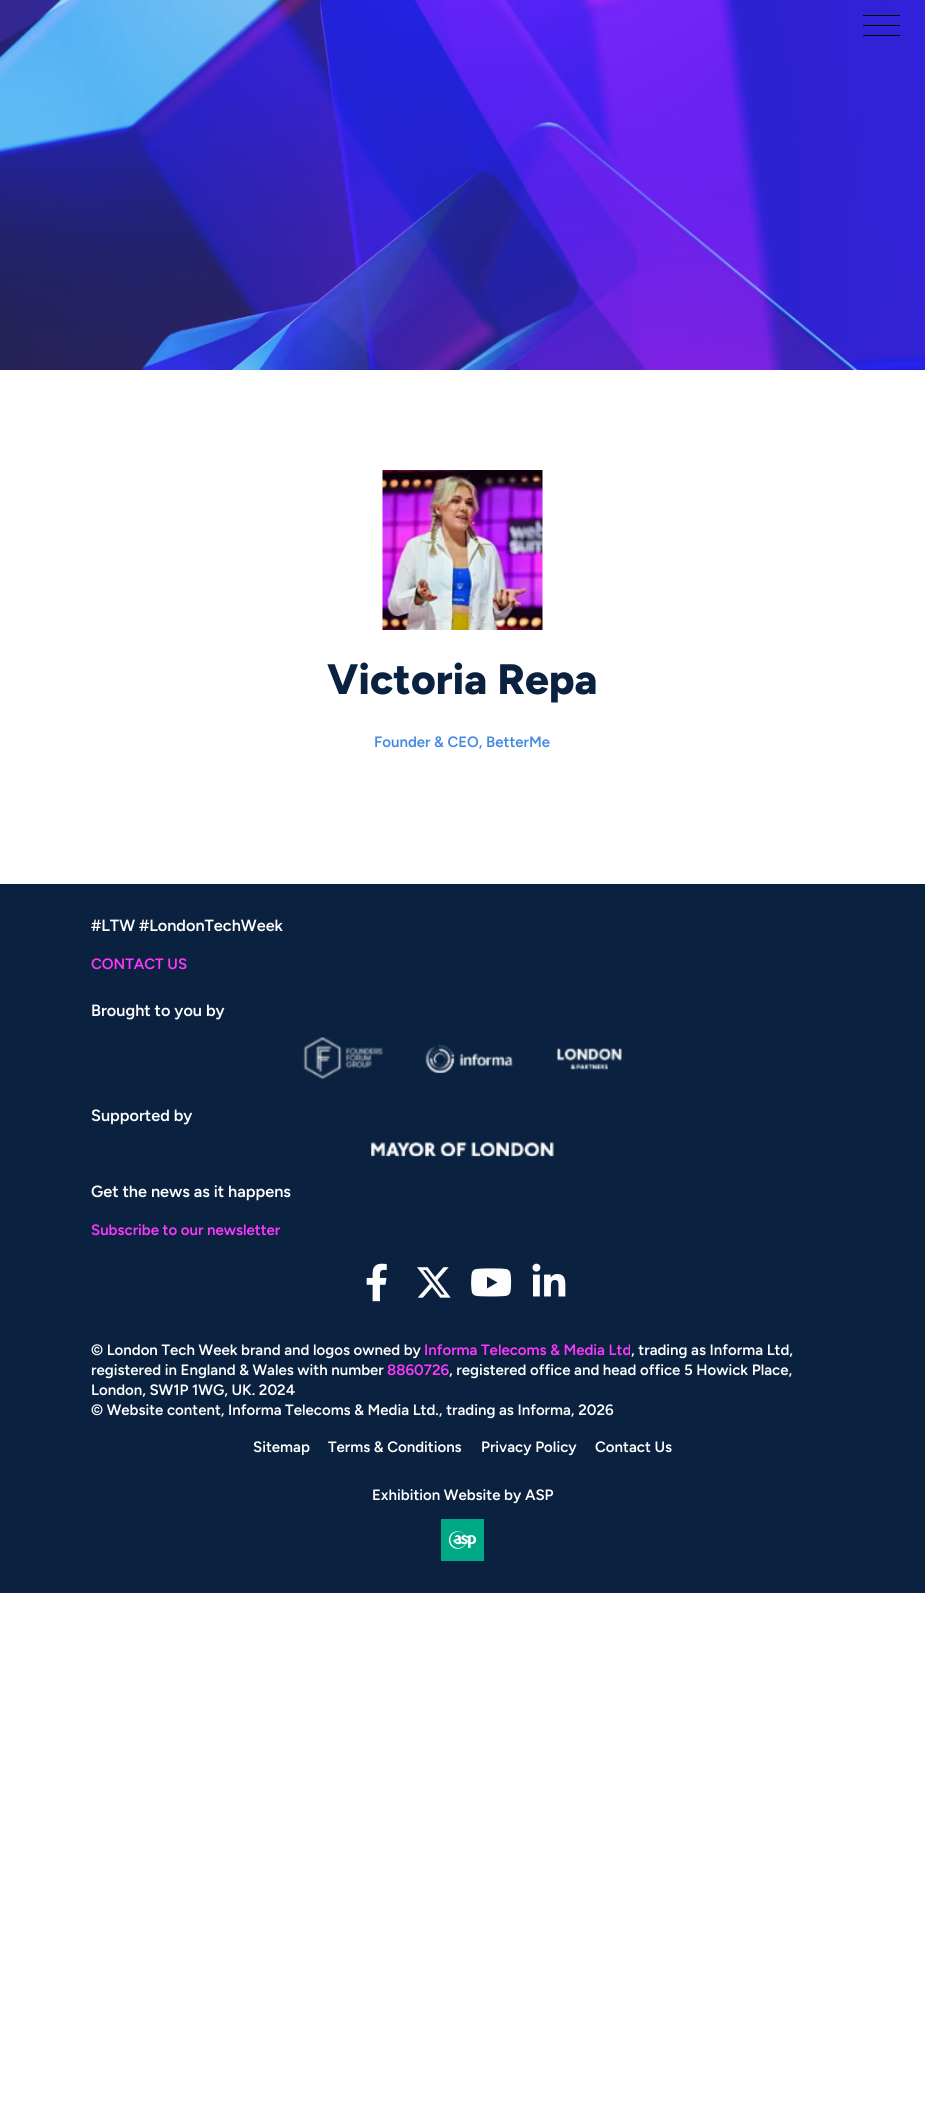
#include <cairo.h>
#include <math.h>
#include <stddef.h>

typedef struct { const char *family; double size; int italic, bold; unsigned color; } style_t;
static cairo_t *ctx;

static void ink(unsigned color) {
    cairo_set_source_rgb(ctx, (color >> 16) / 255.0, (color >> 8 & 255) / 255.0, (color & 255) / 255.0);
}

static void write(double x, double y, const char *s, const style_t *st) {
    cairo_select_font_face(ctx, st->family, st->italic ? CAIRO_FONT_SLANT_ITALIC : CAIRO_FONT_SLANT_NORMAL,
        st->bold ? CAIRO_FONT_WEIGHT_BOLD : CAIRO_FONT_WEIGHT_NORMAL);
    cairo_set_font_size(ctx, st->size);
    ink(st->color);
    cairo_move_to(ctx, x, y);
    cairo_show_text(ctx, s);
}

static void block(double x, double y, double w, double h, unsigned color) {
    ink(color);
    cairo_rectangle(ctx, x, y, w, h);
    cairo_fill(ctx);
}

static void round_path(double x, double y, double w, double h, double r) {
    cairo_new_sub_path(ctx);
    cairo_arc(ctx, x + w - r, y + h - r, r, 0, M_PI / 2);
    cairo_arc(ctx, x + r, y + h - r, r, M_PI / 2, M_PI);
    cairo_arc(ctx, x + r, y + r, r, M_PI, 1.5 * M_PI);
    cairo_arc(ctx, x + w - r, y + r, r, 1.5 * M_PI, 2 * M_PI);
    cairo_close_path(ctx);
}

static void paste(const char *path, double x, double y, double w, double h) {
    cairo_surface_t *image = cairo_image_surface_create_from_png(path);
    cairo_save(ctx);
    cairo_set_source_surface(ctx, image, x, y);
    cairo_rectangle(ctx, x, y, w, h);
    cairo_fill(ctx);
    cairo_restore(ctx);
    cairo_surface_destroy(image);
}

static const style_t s1 = {"Figtree ExtraBold", 42.5, 0, 0, 0x0a2240};
static const style_t s2 = {"Figtree SemiBold", 15, 0, 0, 0x4289e2};
static const style_t s3 = {"Figtree SemiBold", 16.25, 0, 0, 0xffffff};
static const style_t s4 = {"Figtree SemiBold", 15, 0, 0, 0xff38ff};
static const style_t s5 = {"Figtree SemiBold", 15, 0, 0, 0xffffff};

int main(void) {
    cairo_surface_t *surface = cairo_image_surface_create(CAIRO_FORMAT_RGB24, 925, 2123);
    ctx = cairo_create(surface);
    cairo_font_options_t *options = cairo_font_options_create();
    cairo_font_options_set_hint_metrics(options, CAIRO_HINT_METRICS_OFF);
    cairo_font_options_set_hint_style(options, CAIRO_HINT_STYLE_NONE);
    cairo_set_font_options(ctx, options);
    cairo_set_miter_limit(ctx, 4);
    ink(0xffffff);
    cairo_paint(ctx);
    paste("pic1.png", 0, 0, 925, 370);
    ink(0x000000);
    round_path(863, 25, 37, 1, 0.5);
    cairo_fill(ctx);
    round_path(863, 15, 37, 1, 0.5);
    cairo_fill(ctx);
    round_path(863, 35, 37, 1, 0.5);
    cairo_fill(ctx);
    paste("pic2.png", 382, 470, 161, 160);
    write(327, 694, "Victoria Repa", &s1);
    write(374, 747, "Founder & CEO, BetterMe", &s2);
    block(0, 884, 925, 709, 0x0a2240);
    write(91, 931, "#LTW #LondonTechWeek", &s3);
    write(91, 969, "CONTACT US", &s4);
    write(91, 1016, "Brought to you by", &s3);
    paste("pic3.png", 303, 1037, 80, 43);
    paste("pic4.png", 425, 1044, 88, 29);
    paste("pic5.png", 556, 1048, 66, 22);
    write(91, 1121, "Supported by", &s3);
    paste("pic6.png", 371, 1142, 183, 15);
    write(91, 1197, "Get the news as it happens", &s3);
    write(91, 1235, "Subscribe to our newsletter", &s4);
    paste("pic7.png", 366, 1263, 21, 39);
    paste("pic8.png", 417, 1267, 34, 31);
    paste("pic9.png", 471, 1268, 41, 29);
    paste("pic10.png", 532, 1263, 34, 34);
    write(91, 1355, "© London Tech Week brand and logos owned by", &s5);
    write(424, 1355, "Informa Telecoms & Media Ltd", &s4);
    write(631, 1355, ", trading as Informa Ltd,", &s5);
    write(91, 1375, "registered in England & Wales with number", &s5);
    write(387, 1375, "8860726", &s4);
    write(449, 1375, ", registered office and head office 5 Howick Place,", &s5);
    write(91, 1395, "London, SW1P 1WG, UK. 2024", &s5);
    write(91, 1415, "© Website content, Informa Telecoms & Media Ltd., trading as Informa, 2026", &s5);
    write(253, 1452, "Sitemap", &s5);
    write(328, 1452, "Terms & Conditions", &s5);
    write(481, 1452, "Privacy Policy", &s5);
    write(595, 1452, "Contact Us", &s5);
    write(372, 1500, "Exhibition Website by ASP", &s5);
    paste("pic11.png", 441, 1519, 43, 42);
    cairo_surface_write_to_png(surface, "screenshot.png");
    cairo_font_options_destroy(options);
    cairo_destroy(ctx);
    cairo_surface_destroy(surface);
    return 0;
}
